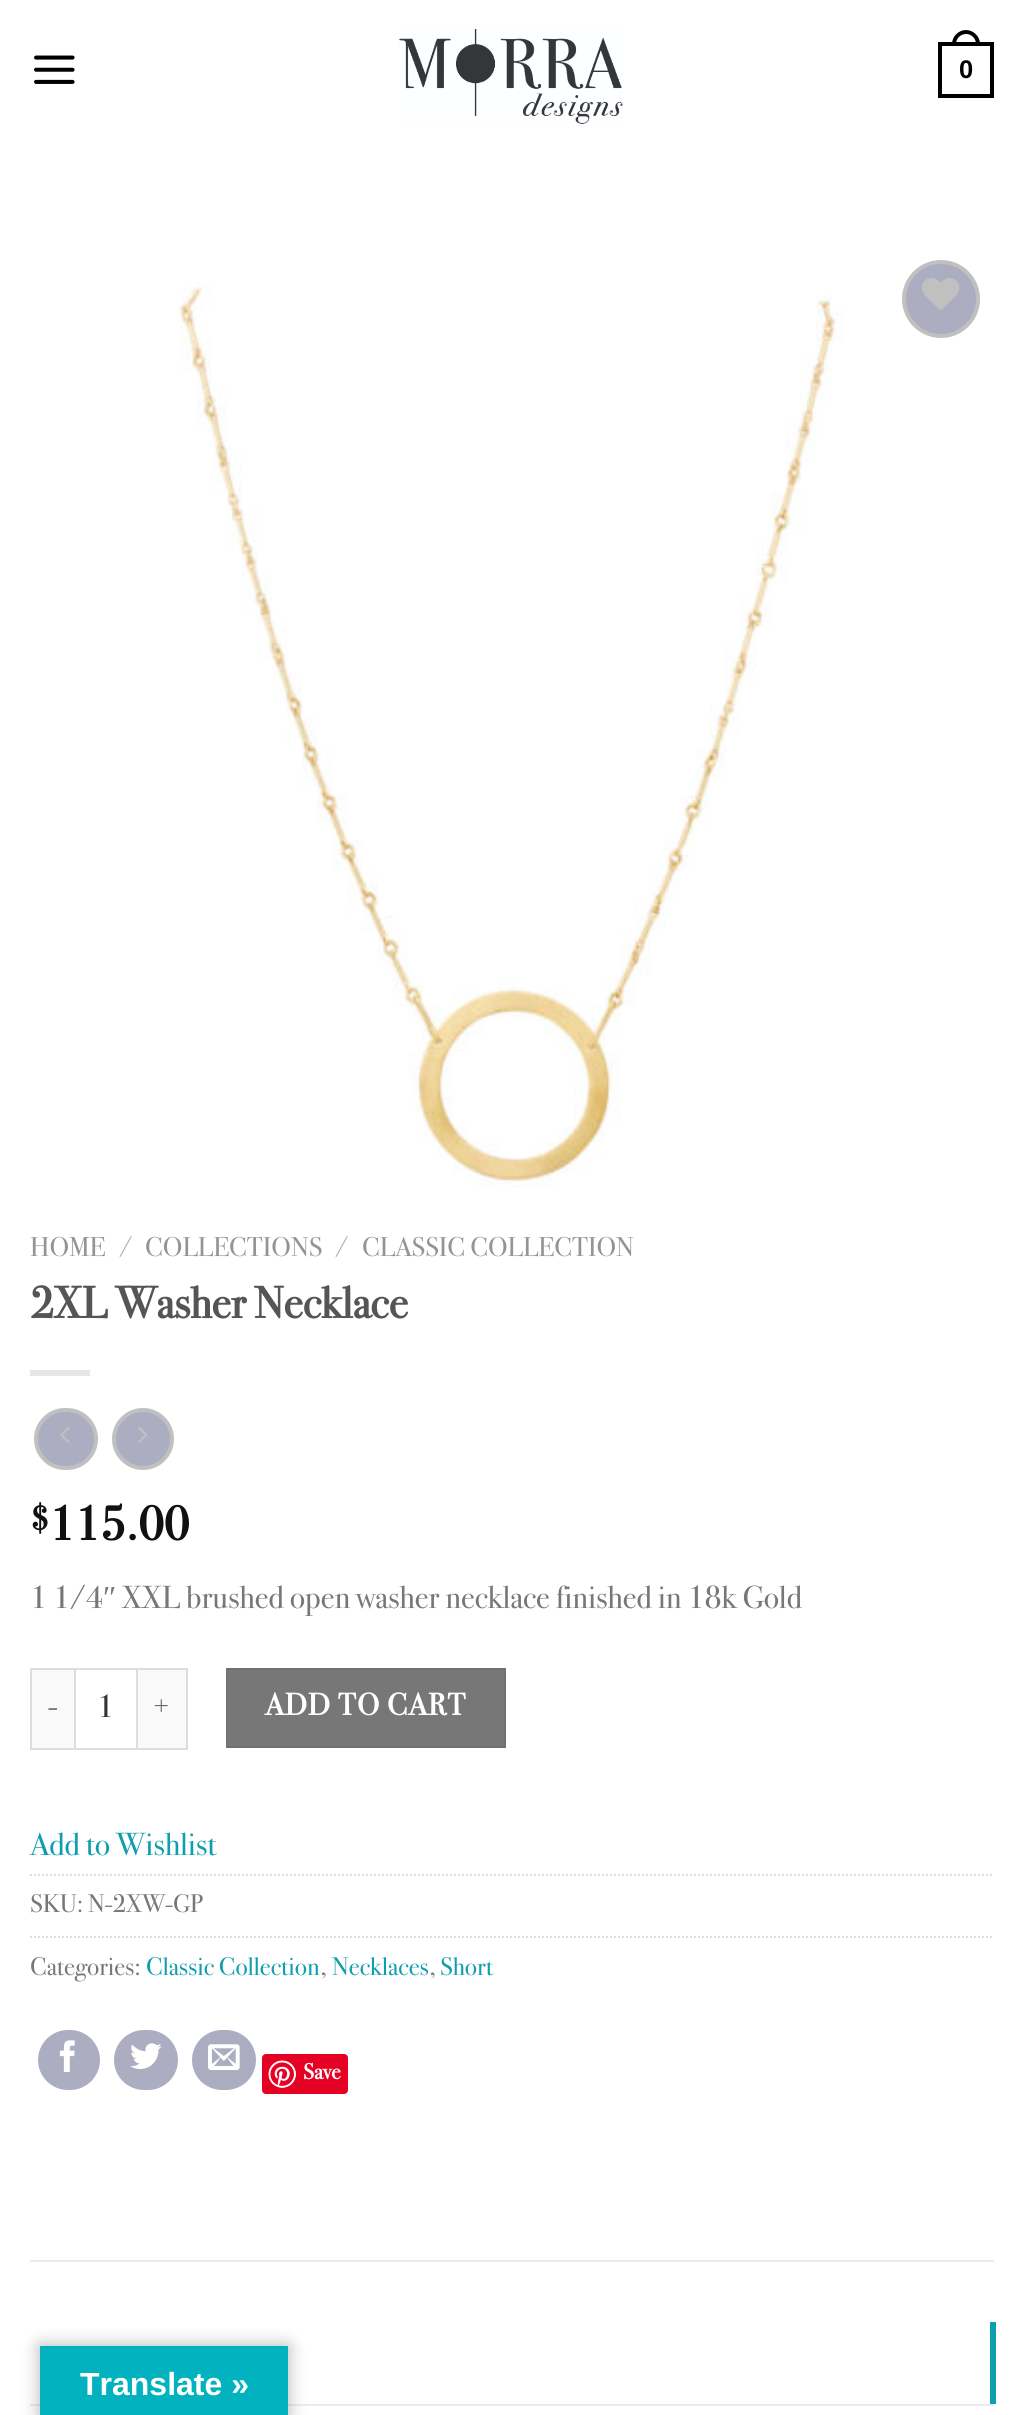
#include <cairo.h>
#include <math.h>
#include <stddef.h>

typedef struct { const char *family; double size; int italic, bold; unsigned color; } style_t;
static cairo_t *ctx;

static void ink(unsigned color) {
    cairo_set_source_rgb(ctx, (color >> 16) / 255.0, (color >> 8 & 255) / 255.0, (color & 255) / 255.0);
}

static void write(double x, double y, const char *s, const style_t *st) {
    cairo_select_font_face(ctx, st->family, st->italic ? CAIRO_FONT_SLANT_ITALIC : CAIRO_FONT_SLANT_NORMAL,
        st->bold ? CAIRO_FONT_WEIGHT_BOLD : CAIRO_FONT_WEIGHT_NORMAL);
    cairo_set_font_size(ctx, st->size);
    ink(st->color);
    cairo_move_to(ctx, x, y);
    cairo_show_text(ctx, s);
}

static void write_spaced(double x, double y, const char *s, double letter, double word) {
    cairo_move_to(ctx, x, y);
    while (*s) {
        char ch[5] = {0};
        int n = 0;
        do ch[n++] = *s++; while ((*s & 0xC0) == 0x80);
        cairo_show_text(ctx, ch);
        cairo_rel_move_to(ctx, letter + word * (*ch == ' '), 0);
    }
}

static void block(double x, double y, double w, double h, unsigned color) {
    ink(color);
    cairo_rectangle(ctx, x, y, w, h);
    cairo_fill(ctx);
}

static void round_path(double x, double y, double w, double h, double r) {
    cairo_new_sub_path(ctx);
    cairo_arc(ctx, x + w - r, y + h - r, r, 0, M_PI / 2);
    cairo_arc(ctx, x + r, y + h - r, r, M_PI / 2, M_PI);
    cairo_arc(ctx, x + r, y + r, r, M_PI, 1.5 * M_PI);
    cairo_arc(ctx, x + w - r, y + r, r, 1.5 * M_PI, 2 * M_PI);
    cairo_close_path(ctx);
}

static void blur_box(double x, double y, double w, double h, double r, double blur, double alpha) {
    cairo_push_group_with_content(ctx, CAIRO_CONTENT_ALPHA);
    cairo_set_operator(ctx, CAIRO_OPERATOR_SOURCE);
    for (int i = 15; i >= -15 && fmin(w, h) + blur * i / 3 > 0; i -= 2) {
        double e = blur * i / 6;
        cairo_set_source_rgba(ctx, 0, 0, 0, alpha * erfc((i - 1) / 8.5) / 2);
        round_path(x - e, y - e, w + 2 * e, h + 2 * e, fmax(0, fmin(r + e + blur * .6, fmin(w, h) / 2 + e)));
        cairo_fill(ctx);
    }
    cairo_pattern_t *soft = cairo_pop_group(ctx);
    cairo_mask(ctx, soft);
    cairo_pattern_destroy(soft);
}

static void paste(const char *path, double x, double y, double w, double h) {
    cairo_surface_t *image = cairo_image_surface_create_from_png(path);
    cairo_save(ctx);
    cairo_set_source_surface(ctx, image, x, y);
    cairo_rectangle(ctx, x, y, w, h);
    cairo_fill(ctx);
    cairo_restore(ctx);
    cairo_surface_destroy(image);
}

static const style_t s1 = {"Liberation Sans", 25.5, 0, 1, 0x000000};
static const style_t s2 = {"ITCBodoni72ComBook", 27.25, 0, 0, 0x949494};
static const style_t s3 = {"ITCBodoni72ComBook", 27.25, 0, 0, 0xb2b2b2};
static const style_t s4 = {"ITCBodoni72ComBook", 44.75, 0, 1, 0x555555};
static const style_t s5 = {"ITCBodoni72ComBook", 36, 0, 1, 0x111111};
static const style_t s6 = {"ITCBodoni72ComBook", 48, 0, 1, 0x111111};
static const style_t s7 = {"ITCBodoni72ComBook", 32, 0, 0, 0x777777};
static const style_t s8 = {"Liberation Serif", 32, 0, 0, 0x777777};
static const style_t s9 = {"ITCBodoni72ComBook", 32, 0, 0, 0x333333};
static const style_t s10 = {"ITCBodoni72ComBook", 32, 0, 0, 0x0e9eae};
static const style_t s11 = {"ITCBodoni72ComBook", 25.5, 0, 0, 0x777777};
static const style_t s12 = {"ITCBodoni72ComBook", 25.5, 0, 0, 0x0e9eae};
static const style_t s13 = {"ITCBodoni72ComBook", 22, 0, 1, 0xffffff};
static const style_t s14 = {"Liberation Sans", 32, 0, 1, 0xffffff};

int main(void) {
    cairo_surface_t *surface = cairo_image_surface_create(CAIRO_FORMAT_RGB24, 1023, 2415);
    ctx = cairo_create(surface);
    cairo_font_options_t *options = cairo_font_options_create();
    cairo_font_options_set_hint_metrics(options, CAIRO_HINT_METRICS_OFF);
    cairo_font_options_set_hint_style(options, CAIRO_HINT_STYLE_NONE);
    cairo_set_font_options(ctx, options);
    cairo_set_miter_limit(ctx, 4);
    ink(0xffffff);
    cairo_paint(ctx);
    paste("pic1.png", 34, 55, 41, 29);
    paste("pic2.png", 399, 29, 224, 95);
    cairo_rectangle(ctx, 940, 44, 52, 52);
    ink(0x000000);
    cairo_set_line_width(ctx, 4);
    cairo_stroke(ctx);
    cairo_set_fill_rule(ctx, CAIRO_FILL_RULE_EVEN_ODD);
    cairo_new_path(ctx);
    cairo_move_to(ctx, 966, 30);
    cairo_curve_to(ctx, 973.5, 30, 980, 36.5, 980, 44);
    cairo_line_to(ctx, 980, 46);
    cairo_line_to(ctx, 952, 46);
    cairo_line_to(ctx, 952, 44);
    cairo_curve_to(ctx, 952, 36.5, 958.5, 30, 966, 30);
    cairo_close_path(ctx);
    cairo_move_to(ctx, 966, 34);
    cairo_curve_to(ctx, 971.5, 34, 976, 38.5, 976, 44);
    cairo_line_to(ctx, 976, 46);
    cairo_line_to(ctx, 956, 46);
    cairo_line_to(ctx, 956, 44);
    cairo_curve_to(ctx, 956, 38.5, 960.5, 34, 966, 34);
    cairo_close_path(ctx);
    cairo_fill(ctx);
    write(959, 78, "0", &s1);
    paste("pic3.png", 178, 281, 666, 907);
    ink(0xadadc2);
    cairo_arc(ctx, 941, 299, 37, 0, 2 * M_PI);
    cairo_fill_preserve(ctx);
    ink(0xc0c0c0);
    cairo_stroke(ctx);
    paste("pic4.png", 922, 278, 38, 32);
    write(30, 1256, "HOME", &s2);
    write(119, 1256, "/", &s3);
    write(145, 1256, "COLLECTIONS", &s2);
    write(335, 1256, "/", &s3);
    write(362, 1256, "CLASSIC COLLECTION", &s2);
    write(30, 1318, "2XL Washer Necklace", &s4);
    block(30, 1370, 60, 6, 0xe6e6e6);
    ink(0xadadc2);
    round_path(36, 1410, 60, 58, 29);
    cairo_fill_preserve(ctx);
    ink(0xc0c0c0);
    cairo_stroke(ctx);
    paste("pic5.png", 60, 1427, 10, 16);
    ink(0xadadc2);
    cairo_arc(ctx, 143, 1439, 29, 0, 2 * M_PI);
    cairo_fill_preserve(ctx);
    ink(0xc0c0c0);
    cairo_stroke(ctx);
    paste("pic6.png", 138, 1427, 10, 16);
    write(30, 1530, "$", &s5);
    write(49, 1540, "115.00", &s6);
    write(30, 1608, "1 1/4", &s7);
    write(103, 1608, "″", &s8);
    write(122, 1608, "XXL brushed open washer necklace finished in 18k Gold", &s7);
    block(32, 1670, 42, 78, 0xf9f9f9);
    block(30, 1668, 44, 2, 0xdddddd);
    block(30, 1748, 44, 2, 0xdddddd);
    block(30, 1668, 2, 82, 0xdddddd);
    cairo_set_font_size(ctx, 31);
    ink(0x666666);
    write_spaced(48, 1716, "-", 1, 0);
    cairo_rectangle(ctx, 75, 1669, 62, 80);
    ink(0xdddddd);
    cairo_set_line_width(ctx, 2);
    cairo_stroke(ctx);
    write(97, 1717, "1", &s9);
    block(138, 1670, 48, 78, 0xf9f9f9);
    block(138, 1668, 50, 2, 0xdddddd);
    block(186, 1668, 2, 82, 0xdddddd);
    block(138, 1748, 50, 2, 0xdddddd);
    cairo_set_font_size(ctx, 31);
    ink(0x666666);
    write_spaced(153, 1716, "+", 1, 0);
    ink(0x777777);
    cairo_rectangle(ctx, 227, 1669, 278, 78);
    cairo_fill_preserve(ctx);
    ink(0x717171);
    cairo_stroke(ctx);
    cairo_select_font_face(ctx, "ITCBodoni72ComBook", CAIRO_FONT_SLANT_NORMAL, CAIRO_FONT_WEIGHT_BOLD);
    ink(0xffffff);
    write_spaced(265, 1715, "ADD TO CART", 1, 0);
    write(30, 1855, "Add to Wishlist", &s10);
    cairo_new_path(ctx);
    cairo_move_to(ctx, 30, 1875);
    cairo_line_to(ctx, 994, 1875);
    ink(0xdddddd);
    cairo_set_dash(ctx, (double[]){2, 2}, 2, 0);
    cairo_stroke(ctx);
    write(30, 1912, "SKU: N-2XW-GP", &s11);
    cairo_new_path(ctx);
    cairo_move_to(ctx, 30, 1937);
    cairo_line_to(ctx, 994, 1937);
    ink(0xdddddd);
    cairo_stroke(ctx);
    write(30, 1975, "Categories:", &s11);
    write(146, 1975, "Classic Collection", &s12);
    write(320, 1975, ",", &s11);
    write(332, 1975, "Necklaces", &s12);
    write(429, 1975, ",", &s11);
    write(440, 1975, "Short", &s12);
    ink(0xadadc2);
    round_path(36, 2028, 66, 64, 32);
    cairo_fill_preserve(ctx);
    ink(0xffffff);
    cairo_set_line_width(ctx, 4);
    cairo_set_dash(ctx, NULL, 0, 0);
    cairo_stroke(ctx);
    paste("pic7.png", 59, 2040, 16, 32);
    ink(0xadadc2);
    round_path(112, 2028, 68, 64, 32);
    cairo_fill_preserve(ctx);
    ink(0xffffff);
    cairo_stroke(ctx);
    paste("pic8.png", 130, 2043, 32, 26);
    ink(0xadadc2);
    round_path(190, 2028, 68, 64, 32);
    cairo_fill_preserve(ctx);
    ink(0xffffff);
    cairo_stroke(ctx);
    paste("pic9.png", 208, 2044, 32, 26);
    ink(0xe60023);
    round_path(262, 2054, 86, 40, 4);
    cairo_fill(ctx);
    paste("pic10.png", 268, 2060, 28, 28);
    write(303, 2079, "Save", &s13);
    block(30, 2260, 964, 2, 0xececec);
    block(990, 2322, 6, 82, 0x0e9eae);
    block(30, 2404, 964, 2, 0xececec);
    ink(0x000000);
    blur_box(40, 2346, 248, 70, 0, 9, 0.3);
    block(40, 2346, 248, 69, 0x03b2bf);
    write(80, 2395, "Translate »", &s14);
    cairo_surface_write_to_png(surface, "screenshot.png");
    cairo_font_options_destroy(options);
    cairo_destroy(ctx);
    cairo_surface_destroy(surface);
    return 0;
}
